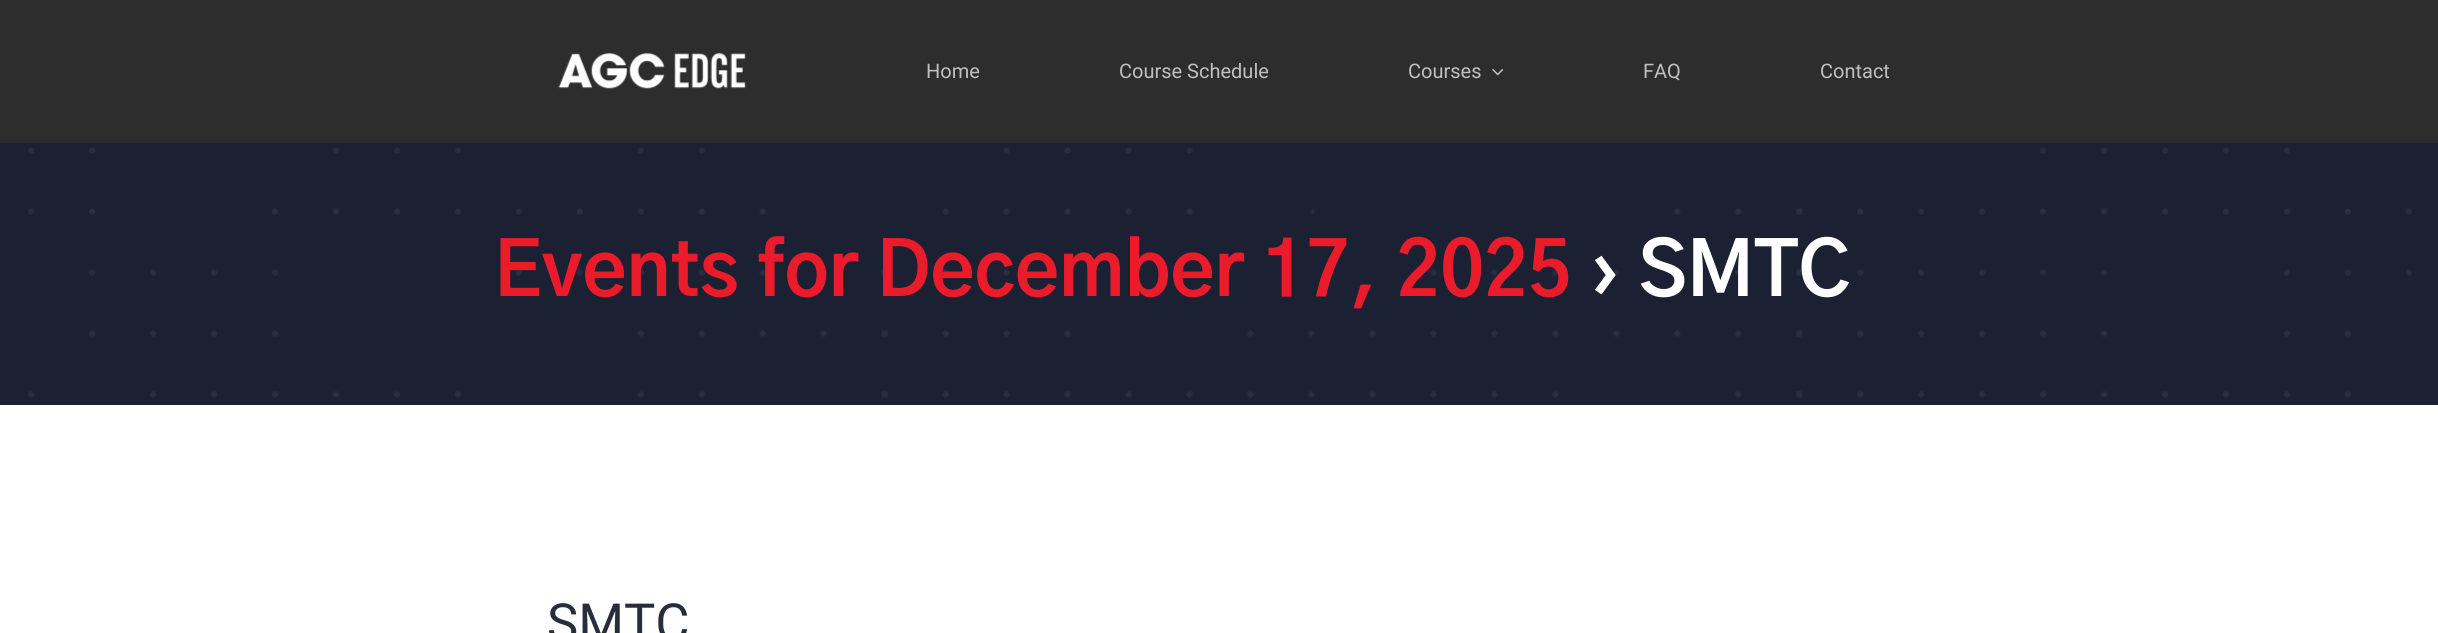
#include <cairo.h>
#include <math.h>
#include <stddef.h>

typedef struct { const char *family; double size; int italic, bold; unsigned color; } style_t;
static cairo_t *ctx;

static void ink(unsigned color) {
    cairo_set_source_rgb(ctx, (color >> 16) / 255.0, (color >> 8 & 255) / 255.0, (color & 255) / 255.0);
}

static void write(double x, double y, const char *s, const style_t *st) {
    cairo_select_font_face(ctx, st->family, st->italic ? CAIRO_FONT_SLANT_ITALIC : CAIRO_FONT_SLANT_NORMAL,
        st->bold ? CAIRO_FONT_WEIGHT_BOLD : CAIRO_FONT_WEIGHT_NORMAL);
    cairo_set_font_size(ctx, st->size);
    ink(st->color);
    cairo_move_to(ctx, x, y);
    cairo_show_text(ctx, s);
}

static void block(double x, double y, double w, double h, unsigned color) {
    ink(color);
    cairo_rectangle(ctx, x, y, w, h);
    cairo_fill(ctx);
}

static void paste(const char *path, double x, double y, double w, double h) {
    cairo_surface_t *image = cairo_image_surface_create_from_png(path);
    cairo_save(ctx);
    cairo_set_source_surface(ctx, image, x, y);
    cairo_rectangle(ctx, x, y, w, h);
    cairo_fill(ctx);
    cairo_restore(ctx);
    cairo_surface_destroy(image);
}

static const style_t s1 = {"Roboto", 20, 0, 0, 0xc0c0c0};
static const style_t s2 = {"Gothic A1", 75, 0, 1, 0xea1c2c};
static const style_t s3 = {"Gothic A1", 75, 0, 1, 0xffffff};
static const style_t s4 = {"Roboto", 52.5, 0, 0, 0x272d3a};

int main(void) {
    cairo_surface_t *surface = cairo_image_surface_create(CAIRO_FORMAT_RGB24, 2438, 633);
    ctx = cairo_create(surface);
    cairo_font_options_t *options = cairo_font_options_create();
    cairo_font_options_set_hint_metrics(options, CAIRO_HINT_METRICS_OFF);
    cairo_font_options_set_hint_style(options, CAIRO_HINT_STYLE_NONE);
    cairo_set_font_options(ctx, options);
    cairo_set_miter_limit(ctx, 4);
    ink(0xffffff);
    cairo_paint(ctx);
    block(0, 0, 2438, 143, 0x2d2d2d);
    paste("pic1.png", 558, 53, 188, 36);
    write(926, 78, "Home", &s1);
    write(1119, 78, "Course Schedule", &s1);
    write(1408, 78, "Courses", &s1);
    paste("pic2.png", 1492, 69, 12, 7);
    write(1643, 78, "FAQ", &s1);
    write(1820, 78, "Contact", &s1);
    paste("pic3.png", 0, 143, 2438, 262);
    write(494, 296, "Events for December 17, 2025", &s2);
    write(1591, 296, "› SMTC", &s3);
    write(547, 641, "SMTC", &s4);
    cairo_surface_write_to_png(surface, "screenshot.png");
    cairo_font_options_destroy(options);
    cairo_destroy(ctx);
    cairo_surface_destroy(surface);
    return 0;
}
